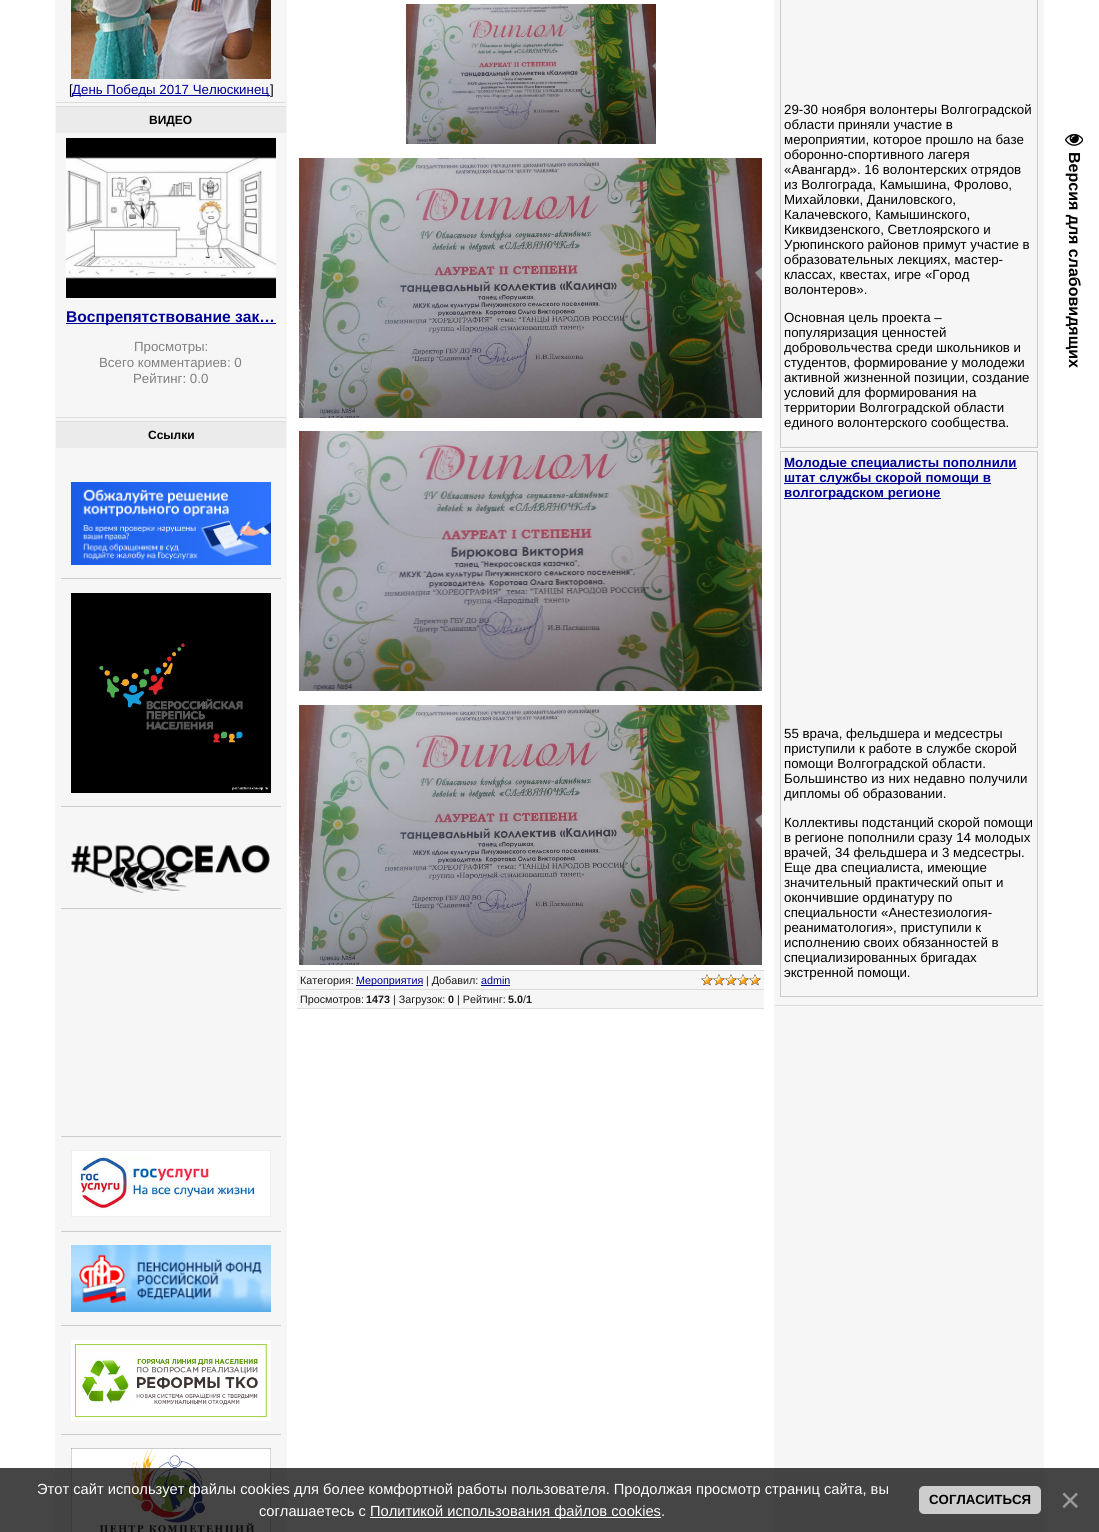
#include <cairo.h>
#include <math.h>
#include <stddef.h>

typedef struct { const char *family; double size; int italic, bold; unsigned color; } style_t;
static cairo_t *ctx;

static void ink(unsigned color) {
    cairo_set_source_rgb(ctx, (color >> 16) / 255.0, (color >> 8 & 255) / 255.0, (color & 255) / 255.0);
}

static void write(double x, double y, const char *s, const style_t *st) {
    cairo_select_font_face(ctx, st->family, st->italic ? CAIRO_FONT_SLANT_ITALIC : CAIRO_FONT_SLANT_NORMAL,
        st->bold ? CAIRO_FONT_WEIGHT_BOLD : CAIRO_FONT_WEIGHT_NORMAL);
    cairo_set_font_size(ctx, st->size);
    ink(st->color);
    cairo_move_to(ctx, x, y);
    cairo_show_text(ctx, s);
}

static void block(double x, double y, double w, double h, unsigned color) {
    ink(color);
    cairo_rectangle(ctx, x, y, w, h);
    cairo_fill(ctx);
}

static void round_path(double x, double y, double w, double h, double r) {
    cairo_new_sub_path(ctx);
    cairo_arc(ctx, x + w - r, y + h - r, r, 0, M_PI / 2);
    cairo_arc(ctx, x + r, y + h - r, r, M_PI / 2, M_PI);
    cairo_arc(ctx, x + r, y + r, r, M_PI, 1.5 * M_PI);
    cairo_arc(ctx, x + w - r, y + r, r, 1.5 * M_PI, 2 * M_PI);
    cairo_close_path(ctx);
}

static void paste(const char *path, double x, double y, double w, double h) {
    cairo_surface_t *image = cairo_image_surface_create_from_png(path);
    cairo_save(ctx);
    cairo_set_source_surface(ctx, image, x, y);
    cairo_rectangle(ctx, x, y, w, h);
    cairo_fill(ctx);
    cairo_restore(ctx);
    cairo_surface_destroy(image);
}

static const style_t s1 = {"Liberation Sans", 13.3, 0, 0, 0x000000};
static const style_t s2 = {"Liberation Sans", 13.3, 0, 0, 0x000096};
static const style_t s3 = {"Liberation Sans", 12, 0, 1, 0x000000};
static const style_t s4 = {"Liberation Sans", 15.6, 0, 1, 0x000096};
static const style_t s5 = {"Liberation Sans", 13.3, 0, 0, 0x808080};
static const style_t s6 = {"Liberation Sans", 13.3, 0, 1, 0x000096};
static const style_t s7 = {"Liberation Sans", 10.75, 0, 0, 0x1a1a1a};
static const style_t s8 = {"Liberation Sans", 10.75, 0, 0, 0x000096};
static const style_t s9 = {"Liberation Sans", 10.75, 0, 1, 0x1a1a1a};
static const style_t s10 = {"Liberation Sans", 16, 0, 1, 0x000000};
static const style_t s11 = {"Liberation Sans", 14.67, 0, 0, 0xffffff};
static const style_t s12 = {"Liberation Sans", 13.25, 0, 1, 0x000000};
static const style_t s13 = {"Liberation Sans", 35, 0, 0, 0x999999};

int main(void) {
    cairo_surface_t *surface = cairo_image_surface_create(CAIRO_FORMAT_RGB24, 1099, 1532);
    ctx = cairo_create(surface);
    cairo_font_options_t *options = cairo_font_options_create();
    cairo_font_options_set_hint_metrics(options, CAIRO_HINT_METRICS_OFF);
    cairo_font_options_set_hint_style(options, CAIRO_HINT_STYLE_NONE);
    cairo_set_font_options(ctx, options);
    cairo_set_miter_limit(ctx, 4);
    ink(0xffffff);
    cairo_paint(ctx);
    block(55, 0, 232, 1532, 0xf6f6f6);
    block(56, 102, 230, 1, 0xdddddd);
    paste("pic1.png", 71, 0, 200, 79);
    write(69, 94, "[", &s1);
    block(72, 95, 198, 1, 0x000096);
    write(72, 94, "День Победы 2017 Челюскинец", &s2);
    write(270, 94, "]", &s1);
    block(56, 106, 230, 1, 0xdddddd);
    block(56, 417, 230, 1, 0xdddddd);
    block(56, 107, 230, 26, 0xebebeb);
    write(149, 124, "ВИДЕО", &s3);
    paste("pic2.png", 66, 138, 210, 160);
    block(66, 323, 210, 1, 0x000096);
    write(66, 322, "Воспрепятствование зак…", &s4);
    write(134, 351, "Просмотры:", &s5);
    write(99, 367, "Всего комментариев: 0", &s5);
    write(133, 383, "Рейтинг: 0.0", &s5);
    block(56, 421, 230, 1, 0xdddddd);
    block(56, 422, 230, 26, 0xebebeb);
    write(148, 439, "Ссылки", &s3);
    paste("pic3.png", 71, 482, 200, 83);
    block(61, 578, 220, 1, 0xcccccc);
    paste("pic4.png", 71, 593, 200, 200);
    block(61, 806, 220, 1, 0xcccccc);
    paste("pic5.png", 71, 845, 199, 48);
    block(61, 908, 220, 1, 0xcccccc);
    block(61, 1136, 220, 1, 0xcccccc);
    paste("pic6.png", 71, 1150, 200, 67);
    block(61, 1231, 220, 1, 0xcccccc);
    paste("pic7.png", 71, 1245, 200, 67);
    block(61, 1325, 220, 1, 0xcccccc);
    paste("pic8.png", 71, 1340, 200, 81);
    block(61, 1434, 220, 1, 0xcccccc);
    paste("pic9.png", 71, 1448, 200, 84);
    block(774, 0, 270, 1532, 0xf6f6f6);
    block(775, 1005, 268, 1, 0xdddddd);
    cairo_rectangle(ctx, 780.5, -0.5, 257, 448);
    ink(0xcccccc);
    cairo_set_line_width(ctx, 1);
    cairo_stroke(ctx);
    write(784, 114, "29-30 ноября волонтеры Волгоградской", &s1);
    write(784, 129, "области приняли участие в", &s1);
    write(784, 144, "мероприятии, которое прошло на базе", &s1);
    write(784, 159, "оборонно-спортивного лагеря", &s1);
    write(784, 174, "«Авангард». 16 волонтерских отрядов", &s1);
    write(784, 189, "из Волгограда, Камышина, Фролово,", &s1);
    write(784, 204, "Михайловки, Даниловского,", &s1);
    write(784, 219, "Калачевского, Камышинского,", &s1);
    write(784, 234, "Киквидзенского, Светлоярского и", &s1);
    write(784, 249, "Урюпинского районов примут участие в", &s1);
    write(784, 264, "образовательных лекциях, мастер-", &s1);
    write(784, 279, "классах, квестах, игре «Город", &s1);
    write(784, 294, "волонтеров».", &s1);
    write(784, 322, "Основная цель проекта –", &s1);
    write(784, 337, "популяризация ценностей", &s1);
    write(784, 352, "добровольчества среди школьников и", &s1);
    write(784, 367, "студентов, формирование у молодежи", &s1);
    write(784, 382, "активной жизненной позиции, создание", &s1);
    write(784, 397, "условий для формирования на", &s1);
    write(784, 412, "территории Волгоградской области", &s1);
    write(784, 427, "единого волонтерского сообщества.", &s1);
    cairo_rectangle(ctx, 780.5, 451.5, 257, 545);
    ink(0xcccccc);
    cairo_stroke(ctx);
    block(784, 468, 233, 1, 0x000096);
    write(784, 467, "Молодые специалисты пополнили", &s6);
    block(784, 483, 207, 1, 0x000096);
    write(784, 482, "штат службы скорой помощи в", &s6);
    block(784, 498, 157, 1, 0x000096);
    write(784, 497, "волгоградском регионе", &s6);
    write(784, 738, "55 врача, фельдшера и медсестры", &s1);
    write(784, 753, "приступили к работе в службе скорой", &s1);
    write(784, 768, "помощи Волгоградской области.", &s1);
    write(784, 783, "Большинство из них недавно получили", &s1);
    write(784, 798, "дипломы об образовании.", &s1);
    write(784, 827, "Коллективы подстанций скорой помощи", &s1);
    write(784, 842, "в регионе пополнили сразу 14 молодых", &s1);
    write(784, 857, "врачей, 34 фельдшера и 3 медсестры.", &s1);
    write(784, 872, "Еще два специалиста, имеющие", &s1);
    write(784, 887, "значительный практический опыт и", &s1);
    write(784, 902, "окончившие ординатуру по", &s1);
    write(784, 917, "специальности «Анестезиология-", &s1);
    write(784, 932, "реаниматология», приступили к", &s1);
    write(784, 947, "исполнению своих обязанностей в", &s1);
    write(784, 962, "специализированных бригадах", &s1);
    write(784, 977, "экстренной помощи.", &s1);
    paste("pic10.png", 406, 4, 250, 140);
    paste("pic11.png", 299, 158, 463, 260);
    paste("pic12.png", 299, 431, 463, 260);
    paste("pic11.png", 299, 705, 463, 260);
    block(297, 971, 467, 18, 0xf6f6f6);
    block(297, 970, 467, 1, 0xdddddd);
    block(297, 989, 467, 1, 0xdddddd);
    write(300, 984, "Категория:", &s7);
    block(356, 985, 67, 1, 0x000096);
    write(356, 984, "Мероприятия", &s8);
    write(426, 984, "| Добавил:", &s7);
    write(481, 984, "admin", &s8);
    block(481, 985, 29, 1, 0x000096);
    paste("pic13.png", 701, 974, 60, 12);
    paste("pic14.png", 701, 974, 60, 12);
    block(297, 990, 467, 18, 0xf6f6f6);
    block(297, 1008, 467, 1, 0xdddddd);
    write(300, 1003, "Просмотров:", &s7);
    write(366, 1003, "1473", &s9);
    write(393, 1003, "| Загрузок:", &s7);
    write(448, 1003, "0", &s9);
    write(457, 1003, "| Рейтинг:", &s7);
    write(508, 1003, "5.0 1", &s9);
    write(523, 1003, "/", &s7);
    paste("pic15.png", 1065, 133, 18, 13);
    cairo_save(ctx);
    cairo_translate(ctx, 1069, 152);
    cairo_rotate(ctx, 90 * M_PI / 180);
    write(0, 0, "Версия для слабовидящих", &s10);
    cairo_restore(ctx);
    cairo_set_source_rgba(ctx, 0, 0, 0, 0.73);
    cairo_rectangle(ctx, 0, 1468, 1099, 64);
    cairo_fill(ctx);
    write(37, 1494, "Этот сайт использует файлы cookies для более комфортной работы пользователя. Продолжая просмотр страниц сайта, вы", &s11);
    write(259, 1516, "соглашаетесь с", &s11);
    block(370, 1517, 291, 1, 0xffffff);
    write(370, 1516, "Политикой использования файлов cookies.", &s11);
    ink(0xcdcdcd);
    round_path(919, 1486, 122, 28, 5);
    cairo_fill(ctx);
    write(929, 1504, "СОГЛАСИТЬСЯ", &s12);
    write(1060, 1512, "×", &s13);
    cairo_surface_write_to_png(surface, "screenshot.png");
    cairo_font_options_destroy(options);
    cairo_destroy(ctx);
    cairo_surface_destroy(surface);
    return 0;
}
